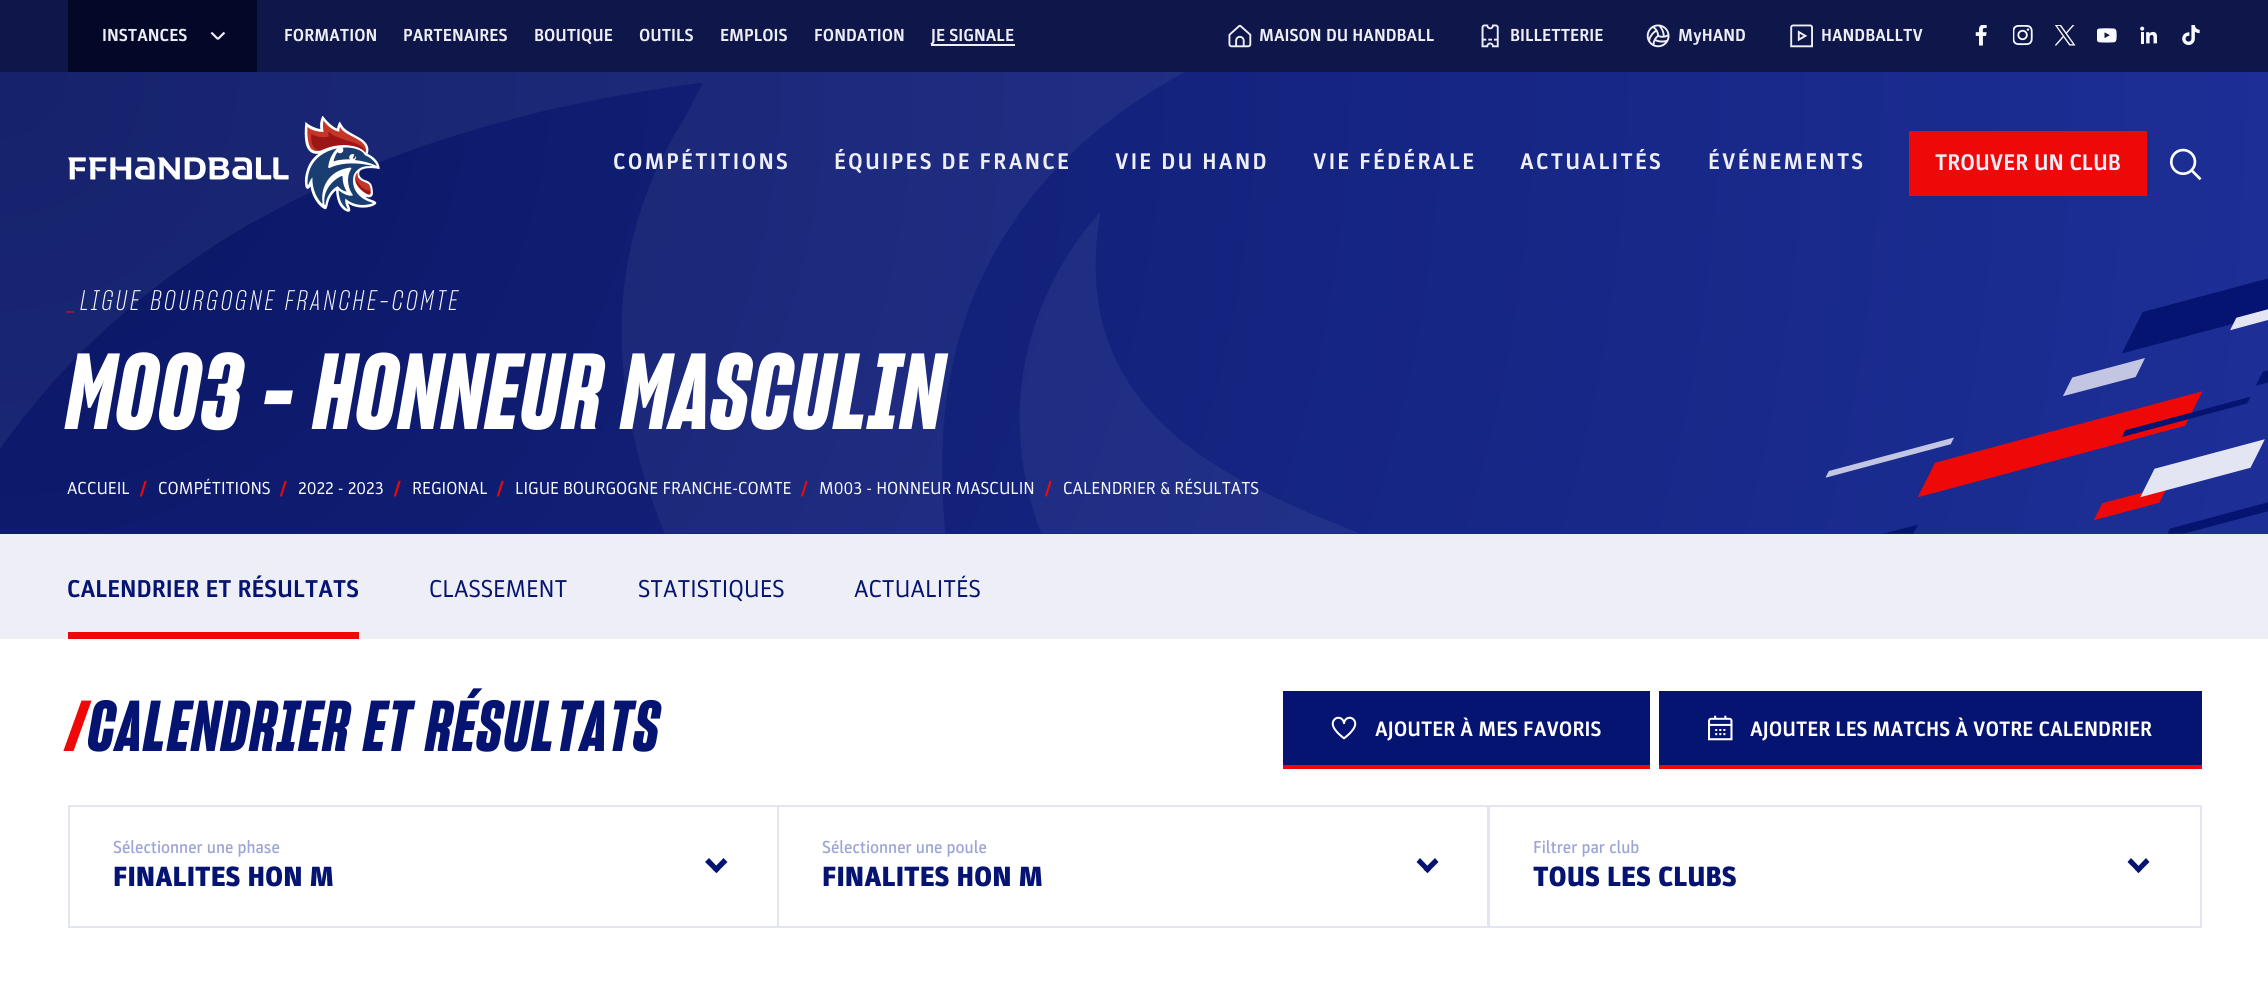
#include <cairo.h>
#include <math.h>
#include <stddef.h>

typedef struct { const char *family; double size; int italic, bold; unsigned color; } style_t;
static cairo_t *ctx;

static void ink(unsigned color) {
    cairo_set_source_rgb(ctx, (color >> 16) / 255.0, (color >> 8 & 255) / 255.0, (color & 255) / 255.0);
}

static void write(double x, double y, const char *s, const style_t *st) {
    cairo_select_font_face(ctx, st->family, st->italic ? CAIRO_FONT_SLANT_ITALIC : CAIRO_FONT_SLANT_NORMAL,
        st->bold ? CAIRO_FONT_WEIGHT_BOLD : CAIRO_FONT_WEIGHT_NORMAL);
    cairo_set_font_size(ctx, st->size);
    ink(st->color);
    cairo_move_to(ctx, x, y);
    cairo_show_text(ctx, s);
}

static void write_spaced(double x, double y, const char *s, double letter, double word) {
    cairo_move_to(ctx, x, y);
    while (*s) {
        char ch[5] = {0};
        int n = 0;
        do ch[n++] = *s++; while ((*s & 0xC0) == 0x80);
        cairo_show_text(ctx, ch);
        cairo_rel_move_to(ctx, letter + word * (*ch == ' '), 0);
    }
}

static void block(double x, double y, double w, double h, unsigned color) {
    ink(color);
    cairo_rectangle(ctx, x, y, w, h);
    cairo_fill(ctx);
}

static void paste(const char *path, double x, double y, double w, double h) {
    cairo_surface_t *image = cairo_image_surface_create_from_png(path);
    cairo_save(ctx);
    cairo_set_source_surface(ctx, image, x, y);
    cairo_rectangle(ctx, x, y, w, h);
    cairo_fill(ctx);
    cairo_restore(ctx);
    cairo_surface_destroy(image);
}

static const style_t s1 = {"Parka", 17.5, 0, 1, 0xedeef6};
static const style_t s2 = {"Parka", 22.75, 0, 1, 0xedeef6};
static const style_t s3 = {"Parka", 17.5, 0, 0, 0xf9faff};
static const style_t s4 = {"Parka", 24.5, 0, 1, 0x051371};
static const style_t s5 = {"Parka", 24.5, 0, 0, 0x051371};
static const style_t s6 = {"Parka", 21, 0, 1, 0xffffff};
static const style_t s7 = {"Parka Medium", 17.5, 0, 0, 0x9da5d7};
static const style_t s8 = {"Parka Black", 28, 0, 0, 0x051371};

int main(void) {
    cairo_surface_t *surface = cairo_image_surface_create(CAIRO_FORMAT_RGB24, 2268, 995);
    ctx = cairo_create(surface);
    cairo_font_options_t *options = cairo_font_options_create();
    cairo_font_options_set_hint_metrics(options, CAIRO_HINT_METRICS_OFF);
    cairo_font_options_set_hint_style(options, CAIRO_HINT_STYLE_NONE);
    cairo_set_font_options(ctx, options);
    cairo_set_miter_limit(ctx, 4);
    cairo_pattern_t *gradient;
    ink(0xffffff);
    cairo_paint(ctx);
    block(0, 0, 2268, 72, 0x0e164a);
    block(68, 0, 189, 72, 0x030829);
    write(102, 41, "INSTANCES", &s1);
    paste("pic1.png", 210, 31, 16, 9);
    write(284, 41, "FORMATION", &s1);
    write(403, 41, "PARTENAIRES", &s1);
    write(534, 41, "BOUTIQUE", &s1);
    write(639, 41, "OUTILS", &s1);
    write(720, 41, "EMPLOIS", &s1);
    write(814, 41, "FONDATION", &s1);
    block(931, 44, 84, 2, 0xedeef6);
    write(931, 41, "JE SIGNALE", &s1);
    paste("pic2.png", 1228, 24, 24, 24);
    write(1259, 41, "MAISON DU HANDBALL", &s1);
    paste("pic3.png", 1481, 24, 18, 24);
    write(1510, 41, "BILLETTERIE", &s1);
    paste("pic4.png", 1646, 24, 24, 24);
    write(1678, 41, "MyHAND", &s1);
    paste("pic5.png", 1790, 24, 23, 24);
    write(1821, 41, "HANDBALLTV", &s1);
    paste("pic6.png", 1975, 25, 12, 21);
    paste("pic7.png", 2013, 25, 20, 21);
    paste("pic8.png", 2055, 25, 21, 21);
    paste("pic9.png", 2097, 28, 20, 15);
    paste("pic10.png", 2140, 26, 17, 18);
    paste("pic11.png", 2182, 25, 18, 21);
    gradient = cairo_pattern_create_radial(0, 72, 0, 0, 72, 2315);
    cairo_pattern_add_color_stop_rgba(gradient, 0, 0.039, 0.086, 0.388, 1);
    cairo_pattern_add_color_stop_rgba(gradient, 1, 0.114, 0.184, 0.592, 1);
    cairo_set_source(ctx, gradient);
    cairo_pattern_destroy(gradient);
    cairo_rectangle(ctx, 0, 72, 2268, 462);
    cairo_fill(ctx);
    paste("pic14.png", 0, 72, 1359, 462);
    paste("pic12.png", 68, 116, 312, 96);
    cairo_set_font_size(ctx, 22.75);
    ink(0xedeef6);
    write_spaced(613, 169, "COMPÉTITIONS", 2.25, 0);
    write_spaced(834, 169, "ÉQUIPES DE FRANCE", 2.25, 0);
    write_spaced(1115, 169, "VIE DU HAND", 2.25, 0);
    write_spaced(1313, 169, "VIE FÉDÉRALE", 2.25, 0);
    write_spaced(1520, 169, "ACTUALITÉS", 2.25, 0);
    write_spaced(1708, 169, "ÉVÉNEMENTS", 2.25, 0);
    block(1909, 131, 238, 65, 0xef0808);
    write(1935, 170, "TROUVER UN CLUB", &s2);
    paste("pic13.png", 2170, 148, 32, 33);
    paste("pic15.png", 1825, 278, 443, 256);
    cairo_select_font_face(ctx, "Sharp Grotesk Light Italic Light", CAIRO_FONT_SLANT_ITALIC, CAIRO_FONT_WEIGHT_NORMAL);
    cairo_set_font_size(ctx, 28);
    ink(0xf9faff);
    write_spaced(80, 310, "LIGUE BOURGOGNE FRANCHE-COMTE", 2.8, 0);
    ink(0xef0808);
    write_spaced(67, 310, "_", 2.8, 0);
    cairo_select_font_face(ctx, "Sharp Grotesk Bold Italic", CAIRO_FONT_SLANT_ITALIC, CAIRO_FONT_WEIGHT_BOLD);
    cairo_set_font_size(ctx, 105);
    ink(0xffffff);
    write_spaced(67, 429, "M003 - HONNEUR MASCULIN", 1.75, 0);
    write(67, 494, "ACCUEIL", &s3);
    cairo_select_font_face(ctx, "Parka", CAIRO_FONT_SLANT_NORMAL, CAIRO_FONT_WEIGHT_BOLD);
    ink(0xef0808);
    write_spaced(139, 494, "/", 1.75, 0);
    write(158, 494, "COMPÉTITIONS", &s3);
    cairo_select_font_face(ctx, "Parka", CAIRO_FONT_SLANT_NORMAL, CAIRO_FONT_WEIGHT_BOLD);
    ink(0xef0808);
    write_spaced(279, 494, "/", 1.75, 0);
    write(298, 494, "2022 - 2023", &s3);
    cairo_select_font_face(ctx, "Parka", CAIRO_FONT_SLANT_NORMAL, CAIRO_FONT_WEIGHT_BOLD);
    ink(0xef0808);
    write_spaced(393, 494, "/", 1.75, 0);
    write(412, 494, "REGIONAL", &s3);
    cairo_select_font_face(ctx, "Parka", CAIRO_FONT_SLANT_NORMAL, CAIRO_FONT_WEIGHT_BOLD);
    ink(0xef0808);
    write_spaced(496, 494, "/", 1.75, 0);
    write(515, 494, "LIGUE BOURGOGNE FRANCHE-COMTE", &s3);
    cairo_select_font_face(ctx, "Parka", CAIRO_FONT_SLANT_NORMAL, CAIRO_FONT_WEIGHT_BOLD);
    ink(0xef0808);
    write_spaced(800, 494, "/", 1.75, 0);
    write(819, 494, "M003 - HONNEUR MASCULIN", &s3);
    cairo_select_font_face(ctx, "Parka", CAIRO_FONT_SLANT_NORMAL, CAIRO_FONT_WEIGHT_BOLD);
    ink(0xef0808);
    write_spaced(1044, 494, "/", 1.75, 0);
    write(1063, 494, "CALENDRIER & RÉSULTATS", &s3);
    block(0, 534, 2268, 105, 0xedeef6);
    write(67, 597, "CALENDRIER ET RÉSULTATS", &s4);
    block(68, 632, 291, 7, 0xef0808);
    write(429, 597, "CLASSEMENT", &s5);
    write(638, 597, "STATISTIQUES", &s5);
    write(854, 597, "ACTUALITÉS", &s5);
    cairo_select_font_face(ctx, "Sharp Grotesk Bold Italic", CAIRO_FONT_SLANT_ITALIC, CAIRO_FONT_WEIGHT_BOLD);
    cairo_set_font_size(ctx, 70);
    ink(0xef0808);
    write_spaced(67, 751, "/", 1.75, 0);
    ink(0x051371);
    write_spaced(88, 751, "CALENDRIER ET RÉSULTATS", 1.75, 0);
    block(1283, 691, 367, 74, 0x051371);
    block(1283, 765, 367, 4, 0xef0808);
    paste("pic16.png", 1331, 716, 26, 24);
    write(1375, 736, "AJOUTER À MES FAVORIS", &s6);
    block(1659, 691, 543, 74, 0x051371);
    block(1659, 765, 543, 4, 0xef0808);
    paste("pic17.png", 1708, 715, 25, 26);
    write(1750, 736, "AJOUTER LES MATCHS À VOTRE CALENDRIER", &s6);
    cairo_rectangle(ctx, 69, 806, 709, 121);
    ink(0xe3e5f2);
    cairo_stroke(ctx);
    write(113, 853, "Sélectionner une phase", &s7);
    write(113, 886, "FINALITES HON M", &s8);
    cairo_new_path(ctx);
    cairo_move_to(ctx, 723.5, 858);
    cairo_line_to(ctx, 727.5, 862);
    cairo_line_to(ctx, 716.5, 873);
    cairo_line_to(ctx, 712.5, 869.5);
    cairo_close_path(ctx);
    cairo_fill(ctx);
    cairo_new_path(ctx);
    cairo_move_to(ctx, 709, 858);
    cairo_line_to(ctx, 720, 869.5);
    cairo_line_to(ctx, 716.5, 873);
    cairo_line_to(ctx, 705, 862);
    cairo_close_path(ctx);
    cairo_fill(ctx);
    cairo_rectangle(ctx, 778, 806, 710, 121);
    ink(0xe3e5f2);
    cairo_stroke(ctx);
    write(822, 853, "Sélectionner une poule", &s7);
    write(822, 886, "FINALITES HON M", &s8);
    cairo_new_path(ctx);
    cairo_move_to(ctx, 1435, 858);
    cairo_line_to(ctx, 1438.5, 862);
    cairo_line_to(ctx, 1427.5, 873);
    cairo_line_to(ctx, 1423.5, 869.5);
    cairo_close_path(ctx);
    cairo_fill(ctx);
    cairo_new_path(ctx);
    cairo_move_to(ctx, 1420, 858);
    cairo_line_to(ctx, 1431, 869.5);
    cairo_line_to(ctx, 1427.5, 873);
    cairo_line_to(ctx, 1416.5, 862);
    cairo_close_path(ctx);
    cairo_fill(ctx);
    cairo_rectangle(ctx, 1489, 806, 712, 121);
    ink(0xe3e5f2);
    cairo_stroke(ctx);
    write(1533, 853, "Filtrer par club", &s7);
    write(1533, 886, "TOUS LES CLUBS", &s8);
    cairo_new_path(ctx);
    cairo_move_to(ctx, 2146, 858);
    cairo_line_to(ctx, 2149.5, 862);
    cairo_line_to(ctx, 2138.5, 873);
    cairo_line_to(ctx, 2135, 869.5);
    cairo_close_path(ctx);
    cairo_fill(ctx);
    cairo_new_path(ctx);
    cairo_move_to(ctx, 2131, 858);
    cairo_line_to(ctx, 2142, 869.5);
    cairo_line_to(ctx, 2138.5, 873);
    cairo_line_to(ctx, 2127.5, 862);
    cairo_close_path(ctx);
    cairo_fill(ctx);
    cairo_surface_write_to_png(surface, "screenshot.png");
    cairo_font_options_destroy(options);
    cairo_destroy(ctx);
    cairo_surface_destroy(surface);
    return 0;
}
